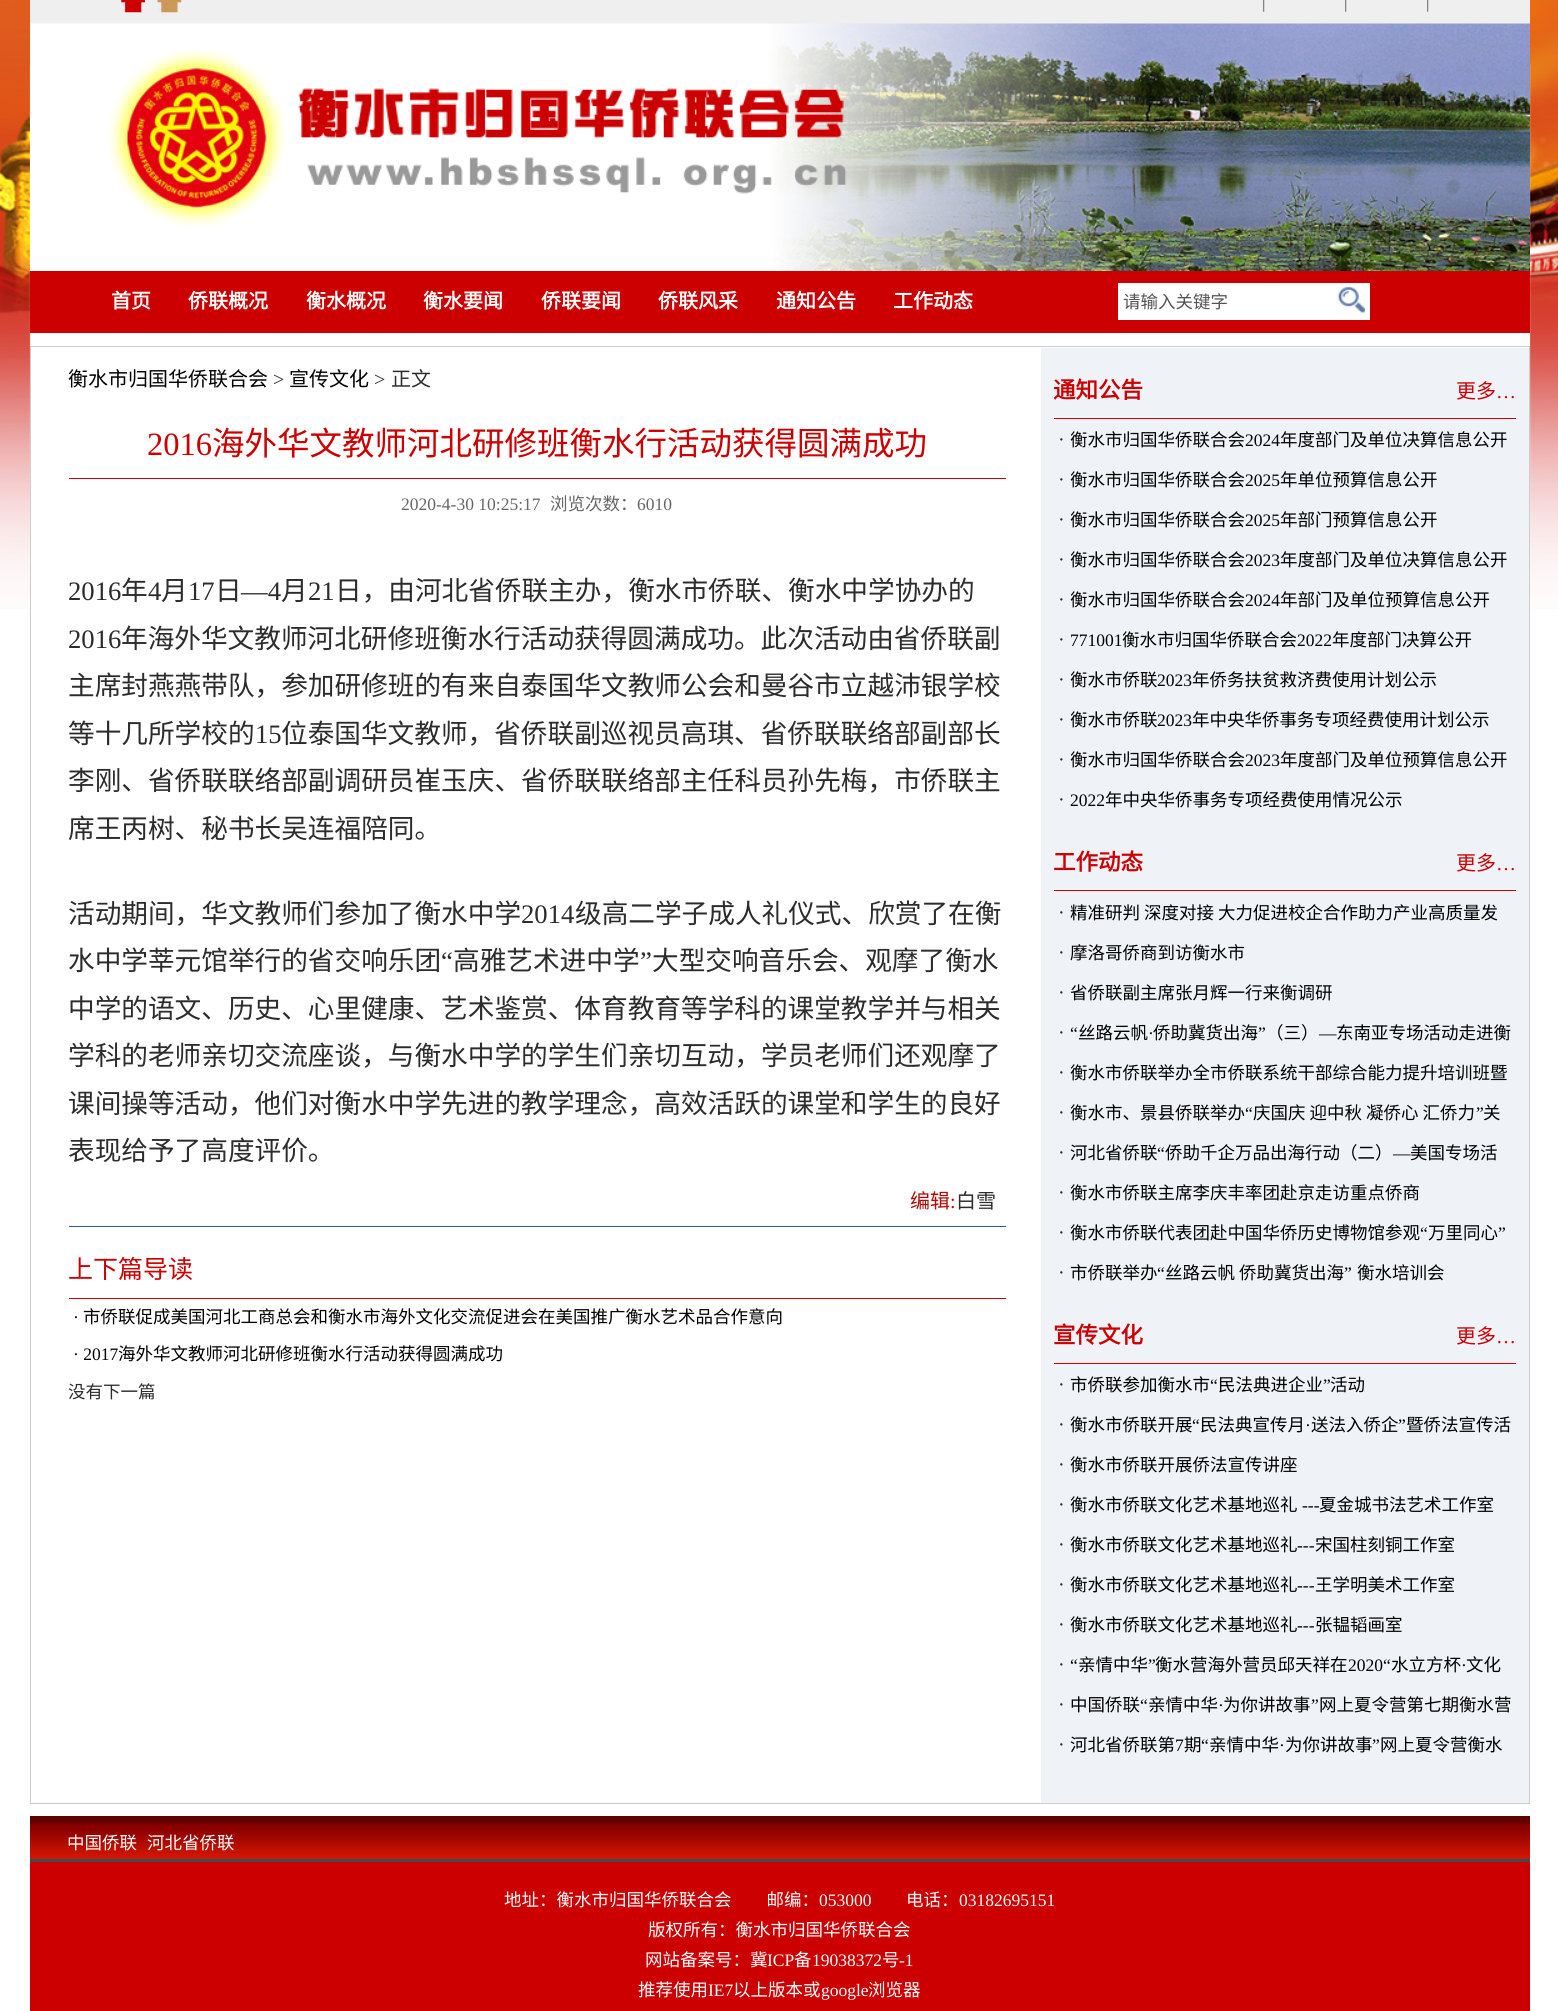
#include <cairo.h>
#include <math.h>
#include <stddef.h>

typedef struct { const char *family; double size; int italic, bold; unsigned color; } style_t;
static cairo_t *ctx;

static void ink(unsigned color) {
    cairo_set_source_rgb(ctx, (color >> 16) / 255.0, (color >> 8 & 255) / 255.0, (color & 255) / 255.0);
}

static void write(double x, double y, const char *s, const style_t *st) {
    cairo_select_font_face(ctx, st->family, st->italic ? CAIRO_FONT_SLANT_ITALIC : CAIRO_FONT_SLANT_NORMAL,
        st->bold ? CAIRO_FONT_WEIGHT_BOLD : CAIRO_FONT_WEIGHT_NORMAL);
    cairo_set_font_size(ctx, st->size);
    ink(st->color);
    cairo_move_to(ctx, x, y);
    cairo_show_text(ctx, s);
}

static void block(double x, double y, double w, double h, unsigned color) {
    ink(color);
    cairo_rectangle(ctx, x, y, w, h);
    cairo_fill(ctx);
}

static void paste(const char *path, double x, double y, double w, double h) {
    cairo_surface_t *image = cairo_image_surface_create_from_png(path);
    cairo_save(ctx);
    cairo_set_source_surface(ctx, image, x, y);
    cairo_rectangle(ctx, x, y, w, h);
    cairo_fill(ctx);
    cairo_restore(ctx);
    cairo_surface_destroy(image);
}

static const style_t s1 = {"Liberation Serif", 17.5, 0, 0, 0x535353};
static const style_t s2 = {"Noto Sans CJK SC", 20, 0, 1, 0xffffff};
static const style_t s3 = {"Noto Sans CJK SC", 17.5, 0, 0, 0x535353};
static const style_t s4 = {"Noto Sans CJK SC", 20, 0, 0, 0x000000};
static const style_t s5 = {"Liberation Serif", 20, 0, 0, 0x2c2c2c};
static const style_t s6 = {"Noto Sans CJK SC", 20, 0, 0, 0x2c2c2c};
static const style_t s7 = {"Liberation Serif", 32.5, 0, 0, 0xcc0000};
static const style_t s8 = {"Noto Sans CJK SC", 32.5, 0, 0, 0xcc0000};
static const style_t s9 = {"Liberation Serif", 17.5, 0, 0, 0x666666};
static const style_t s10 = {"Noto Sans CJK SC", 17.5, 0, 0, 0x666666};
static const style_t s11 = {"Liberation Serif", 26.65, 0, 0, 0x2c2c2c};
static const style_t s12 = {"Noto Sans CJK SC", 26.65, 0, 0, 0x2c2c2c};
static const style_t s13 = {"Noto Sans CJK SC", 20, 0, 0, 0xb60902};
static const style_t s14 = {"Liberation Serif", 20, 0, 0, 0xb60902};
static const style_t s15 = {"Noto Sans CJK SC", 25, 0, 0, 0xcc0000};
static const style_t s16 = {"Liberation Serif", 17.5, 0, 0, 0x000000};
static const style_t s17 = {"Noto Sans CJK SC", 17.5, 0, 0, 0x000000};
static const style_t s18 = {"Noto Sans CJK SC", 17.5, 0, 0, 0x2c2c2c};
static const style_t s19 = {"Noto Sans CJK SC", 22.5, 0, 1, 0xcc0000};
static const style_t s20 = {"Noto Sans CJK SC", 20, 0, 0, 0xcc0000};
static const style_t s21 = {"Liberation Serif", 20, 0, 0, 0xcc0000};
static const style_t s22 = {"Noto Sans CJK SC", 17.5, 0, 0, 0xffffff};
static const style_t s23 = {"Liberation Serif", 17.5, 0, 0, 0xffffff};

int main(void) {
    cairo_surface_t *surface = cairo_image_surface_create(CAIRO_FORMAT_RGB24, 1558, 2011);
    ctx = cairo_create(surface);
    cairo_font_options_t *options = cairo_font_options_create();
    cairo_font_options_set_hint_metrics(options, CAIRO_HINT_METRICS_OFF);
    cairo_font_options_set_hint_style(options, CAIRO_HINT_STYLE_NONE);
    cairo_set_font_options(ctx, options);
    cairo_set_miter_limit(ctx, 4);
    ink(0xffffff);
    cairo_paint(ctx);
    paste("pic1.png", 0, 0, 1558, 609);
    block(30, 0, 1500, 24, 0xefefef);
    paste("pic2.png", 121, 0, 24, 13);
    paste("pic3.png", 157, 0, 25, 13);
    write(1262, 8, "|", &s1);
    write(1344, 8, "|", &s1);
    write(1426, 8, "|", &s1);
    paste("pic4.png", 30, 23, 1500, 248);
    block(30, 271, 1500, 62, 0xcc0000);
    write(111, 308, "首页", &s2);
    write(188, 308, "侨联概况", &s2);
    write(306, 308, "衡水概况", &s2);
    write(423, 308, "衡水要闻", &s2);
    write(541, 308, "侨联要闻", &s2);
    write(658, 308, "侨联风采", &s2);
    write(776, 308, "通知公告", &s2);
    write(893, 308, "工作动态", &s2);
    block(1118, 283, 252, 37, 0xffffff);
    write(1123, 308, "请输入关键字", &s3);
    paste("pic5.png", 1336, 283, 31, 31);
    cairo_rectangle(ctx, 30.5, 346.5, 1499, 1457);
    ink(0xcccccc);
    cairo_set_line_width(ctx, 1);
    cairo_stroke(ctx);
    write(68, 386, "衡水市归国华侨联合会", &s4);
    write(273, 386, ">", &s5);
    write(289, 386, "宣传文化", &s4);
    write(374, 386, ">", &s5);
    write(391, 386, "正文", &s6);
    block(69, 478, 937, 1, 0xcc0000);
    write(147, 455, "2016", &s7);
    write(212, 455, "海外华文教师河北研修班衡水行活动获得圆满成功", &s8);
    write(401, 510, "2020-4-30 10:25:17", &s9);
    write(550, 510, "浏览次数：", &s10);
    write(637, 510, "6010", &s9);
    write(68, 600, "2016", &s11);
    write(121, 600, "年", &s12);
    write(148, 600, "4", &s11);
    write(161, 600, "月", &s12);
    write(188, 600, "17", &s11);
    write(215, 600, "日", &s12);
    write(241, 600, "—4", &s11);
    write(281, 600, "月", &s12);
    write(308, 600, "21", &s11);
    write(335, 600, "日，由河北省侨联主办，衡水市侨联、衡水中学协办的", &s12);
    write(68, 648, "2016", &s11);
    write(121, 648, "年海外华文教师河北研修班衡水行活动获得圆满成功。此次活动由省侨联副", &s12);
    write(68, 695, "主席封燕燕带队，参加研修班的有来自泰国华文教师公会和曼谷市立越沛银学校", &s12);
    write(68, 743, "等十几所学校的", &s12);
    write(255, 743, "15", &s11);
    write(281, 743, "位泰国华文教师，省侨联副巡视员高琪、省侨联联络部副部长", &s12);
    write(68, 790, "李刚、省侨联联络部副调研员崔玉庆、省侨联联络部主任科员孙先梅，市侨联主", &s12);
    write(68, 838, "席王丙树、秘书长吴连福陪同。", &s12);
    write(68, 923, "活动期间，华文教师们参加了衡水中学", &s12);
    write(521, 923, "2014", &s11);
    write(575, 923, "级高二学子成人礼仪式、欣赏了在衡", &s12);
    write(68, 970, "水中学莘元馆举行的省交响乐团", &s12);
    write(441, 970, "“", &s11);
    write(453, 970, "高雅艺术进中学", &s12);
    write(640, 970, "”", &s11);
    write(652, 970, "大型交响音乐会、观摩了衡水", &s12);
    write(68, 1018, "中学的语文、历史、心里健康、艺术鉴赏、体育教育等学科的课堂教学并与相关", &s12);
    write(68, 1065, "学科的老师亲切交流座谈，与衡水中学的学生们亲切互动，学员老师们还观摩了", &s12);
    write(68, 1113, "课间操等活动，他们对衡水中学先进的教学理念，高效活跃的课堂和学生的良好", &s12);
    write(68, 1160, "表现给予了高度评价。", &s12);
    block(69, 1226, 937, 1, 0x2d5b88);
    write(910, 1208, "编辑", &s13);
    write(950, 1208, ":", &s14);
    write(956, 1208, "白雪", &s6);
    block(69, 1298, 937, 1, 0xcc0000);
    write(68, 1278, "上下篇导读", &s15);
    write(73, 1323, "·", &s16);
    write(83, 1323, "市侨联促成美国河北工商总会和衡水市海外文化交流促进会在美国推广衡水艺术品合作意向", &s17);
    write(73, 1360, "· 2017", &s16);
    write(118, 1360, "海外华文教师河北研修班衡水行活动获得圆满成功", &s17);
    write(68, 1398, "没有下一篇", &s18);
    block(1041, 348, 488, 1455, 0xeff3f7);
    block(1054, 418, 462, 1, 0xcc0000);
    write(1053, 398, "通知公告", &s19);
    write(1456, 398, "更多", &s20);
    write(1496, 398, "…", &s21);
    write(1058, 446, "·", &s5);
    write(1070, 446, "衡水市归国华侨联合会", &s17);
    write(1245, 446, "2024", &s16);
    write(1280, 446, "年度部门及单位决算信息公开", &s17);
    write(1058, 486, "·", &s5);
    write(1070, 486, "衡水市归国华侨联合会", &s17);
    write(1245, 486, "2025", &s16);
    write(1280, 486, "年单位预算信息公开", &s17);
    write(1058, 526, "·", &s5);
    write(1070, 526, "衡水市归国华侨联合会", &s17);
    write(1245, 526, "2025", &s16);
    write(1280, 526, "年部门预算信息公开", &s17);
    write(1058, 566, "·", &s5);
    write(1070, 566, "衡水市归国华侨联合会", &s17);
    write(1245, 566, "2023", &s16);
    write(1280, 566, "年度部门及单位决算信息公开", &s17);
    write(1058, 606, "·", &s5);
    write(1070, 606, "衡水市归国华侨联合会", &s17);
    write(1245, 606, "2024", &s16);
    write(1280, 606, "年部门及单位预算信息公开", &s17);
    write(1058, 646, "·", &s5);
    write(1070, 646, "771001", &s16);
    write(1122, 646, "衡水市归国华侨联合会", &s17);
    write(1297, 646, "2022", &s16);
    write(1332, 646, "年度部门决算公开", &s17);
    write(1058, 686, "·", &s5);
    write(1070, 686, "衡水市侨联", &s17);
    write(1157, 686, "2023", &s16);
    write(1192, 686, "年侨务扶贫救济费使用计划公示", &s17);
    write(1058, 726, "·", &s5);
    write(1070, 726, "衡水市侨联", &s17);
    write(1157, 726, "2023", &s16);
    write(1192, 726, "年中央华侨事务专项经费使用计划公示", &s17);
    write(1058, 766, "·", &s5);
    write(1070, 766, "衡水市归国华侨联合会", &s17);
    write(1245, 766, "2023", &s16);
    write(1280, 766, "年度部门及单位预算信息公开", &s17);
    write(1058, 806, "·", &s5);
    write(1070, 806, "2022", &s16);
    write(1105, 806, "年中央华侨事务专项经费使用情况公示", &s17);
    block(1054, 890, 462, 1, 0xcc0000);
    write(1053, 870, "工作动态", &s19);
    write(1456, 870, "更多", &s20);
    write(1496, 870, "…", &s21);
    write(1058, 919, "·", &s5);
    write(1070, 919, "精准研判", &s17);
    write(1144, 919, "深度对接 大力促进校企合作助力产业高质量发", &s17);
    write(1058, 959, "·", &s5);
    write(1070, 959, "摩洛哥侨商到访衡水市", &s17);
    write(1058, 999, "·", &s5);
    write(1070, 999, "省侨联副主席张月辉一行来衡调研", &s17);
    write(1070, 1039, "“", &s16);
    write(1078, 1039, "丝路云帆", &s17);
    write(1153, 1039, "侨助冀货出海", &s17);
    write(1258, 1039, "”", &s16);
    write(1266, 1039, "（三）", &s17);
    write(1336, 1039, "东南亚专场活动走进衡", &s17);
    write(1058, 1039, "·", &s5);
    write(1148, 1039, "·", &s16);
    write(1319, 1039, "—", &s16);
    write(1058, 1079, "·", &s5);
    write(1070, 1079, "衡水市侨联举办全市侨联系统干部综合能力提升培训班暨", &s17);
    write(1070, 1119, "衡水市、景县侨联举办", &s17);
    write(1245, 1119, "“", &s16);
    write(1253, 1119, "庆国庆 迎中秋", &s17);
    write(1366, 1119, "凝侨心 汇侨力", &s17);
    write(1476, 1119, "”", &s16);
    write(1483, 1119, "关", &s17);
    write(1058, 1119, "·", &s5);
    write(1070, 1159, "河北省侨联", &s17);
    write(1157, 1159, "“", &s16);
    write(1165, 1159, "侨助千企万品出海行动（二）", &s17);
    write(1393, 1159, "—", &s16);
    write(1410, 1159, "美国专场活", &s17);
    write(1058, 1159, "·", &s5);
    write(1058, 1199, "·", &s5);
    write(1070, 1199, "衡水市侨联主席李庆丰率团赴京走访重点侨商", &s17);
    write(1070, 1239, "衡水市侨联代表团赴中国华侨历史博物馆参观", &s17);
    write(1420, 1239, "“", &s16);
    write(1428, 1239, "万里同心", &s17);
    write(1498, 1239, "”", &s16);
    write(1058, 1239, "·", &s5);
    write(1070, 1279, "市侨联举办", &s17);
    write(1157, 1279, "“", &s16);
    write(1165, 1279, "丝路云帆 侨助冀货出海", &s17);
    write(1344, 1279, "”", &s16);
    write(1357, 1279, "衡水培训会", &s17);
    write(1058, 1279, "·", &s5);
    block(1054, 1363, 462, 1, 0xcc0000);
    write(1053, 1343, "宣传文化", &s19);
    write(1456, 1343, "更多", &s20);
    write(1496, 1343, "…", &s21);
    write(1070, 1391, "市侨联参加衡水市", &s17);
    write(1210, 1391, "“", &s16);
    write(1218, 1391, "民法典进企业", &s17);
    write(1323, 1391, "”", &s16);
    write(1330, 1391, "活动", &s17);
    write(1058, 1391, "·", &s5);
    write(1070, 1431, "衡水市侨联开展", &s17);
    write(1192, 1431, "“", &s16);
    write(1200, 1431, "民法典宣传月", &s17);
    write(1311, 1431, "送法入侨企", &s17);
    write(1398, 1431, "”", &s16);
    write(1406, 1431, "暨侨法宣传活", &s17);
    write(1058, 1431, "·", &s5);
    write(1305, 1431, "·", &s16);
    write(1058, 1471, "·", &s5);
    write(1070, 1471, "衡水市侨联开展侨法宣传讲座", &s17);
    write(1058, 1511, "·", &s5);
    write(1070, 1511, "衡水市侨联文化艺术基地巡礼", &s17);
    write(1319, 1511, "夏金城书法艺术工作室", &s17);
    write(1302, 1511, "---", &s16);
    write(1058, 1551, "·", &s5);
    write(1070, 1551, "衡水市侨联文化艺术基地巡礼", &s17);
    write(1315, 1551, "宋国柱刻铜工作室", &s17);
    write(1297, 1551, "---", &s16);
    write(1058, 1591, "·", &s5);
    write(1070, 1591, "衡水市侨联文化艺术基地巡礼", &s17);
    write(1315, 1591, "王学明美术工作室", &s17);
    write(1297, 1591, "---", &s16);
    write(1058, 1631, "·", &s5);
    write(1070, 1631, "衡水市侨联文化艺术基地巡礼", &s17);
    write(1315, 1631, "张韫韬画室", &s17);
    write(1297, 1631, "---", &s16);
    write(1058, 1671, "·", &s5);
    write(1070, 1671, "“", &s16);
    write(1078, 1671, "亲情中华", &s17);
    write(1148, 1671, "”", &s16);
    write(1155, 1671, "衡水营海外营员邱天祥在", &s17);
    write(1348, 1671, "2020“", &s16);
    write(1391, 1671, "水立方杯", &s17);
    write(1461, 1671, "·", &s16);
    write(1466, 1671, "文化", &s17);
    write(1070, 1711, "中国侨联", &s17);
    write(1140, 1711, "“", &s16);
    write(1148, 1711, "亲情中华", &s17);
    write(1223, 1711, "为你讲故事", &s17);
    write(1311, 1711, "”", &s16);
    write(1319, 1711, "网上夏令营第七期衡水营", &s17);
    write(1058, 1711, "·", &s5);
    write(1218, 1711, "·", &s16);
    write(1070, 1751, "河北省侨联第", &s17);
    write(1175, 1751, "7", &s16);
    write(1184, 1751, "期", &s17);
    write(1201, 1751, "“", &s16);
    write(1209, 1751, "亲情中华", &s17);
    write(1285, 1751, "为你讲故事", &s17);
    write(1372, 1751, "”", &s16);
    write(1380, 1751, "网上夏令营衡水", &s17);
    write(1058, 1751, "·", &s5);
    write(1279, 1751, "·", &s16);
    paste("pic6.png", 30, 1816, 1500, 43);
    write(67, 1849, "中国侨联", &s22);
    write(147, 1849, "河北省侨联", &s22);
    block(30, 1862, 1500, 149, 0xcc0000);
    block(30, 1859, 1500, 3, 0x3e4b53);
    write(504, 1906, "地址：衡水市归国华侨联合会　　邮编：", &s22);
    write(819, 1906, "053000", &s23);
    write(906, 1906, "电话：", &s22);
    write(959, 1906, "03182695151", &s23);
    write(648, 1936, "版权所有：衡水市归国华侨联合会", &s22);
    write(645, 1966, "网站备案号：冀", &s22);
    write(767, 1966, "ICP", &s23);
    write(794, 1966, "备", &s22);
    write(812, 1966, "19038372", &s23);
    write(882, 1966, "号", &s22);
    write(899, 1966, "-1", &s23);
    write(638, 1996, "推荐使用", &s22);
    write(708, 1996, "IE7", &s23);
    write(733, 1996, "以上版本或", &s22);
    write(821, 1996, "google", &s23);
    write(868, 1996, "浏览器", &s22);
    cairo_surface_write_to_png(surface, "screenshot.png");
    cairo_font_options_destroy(options);
    cairo_destroy(ctx);
    cairo_surface_destroy(surface);
    return 0;
}
